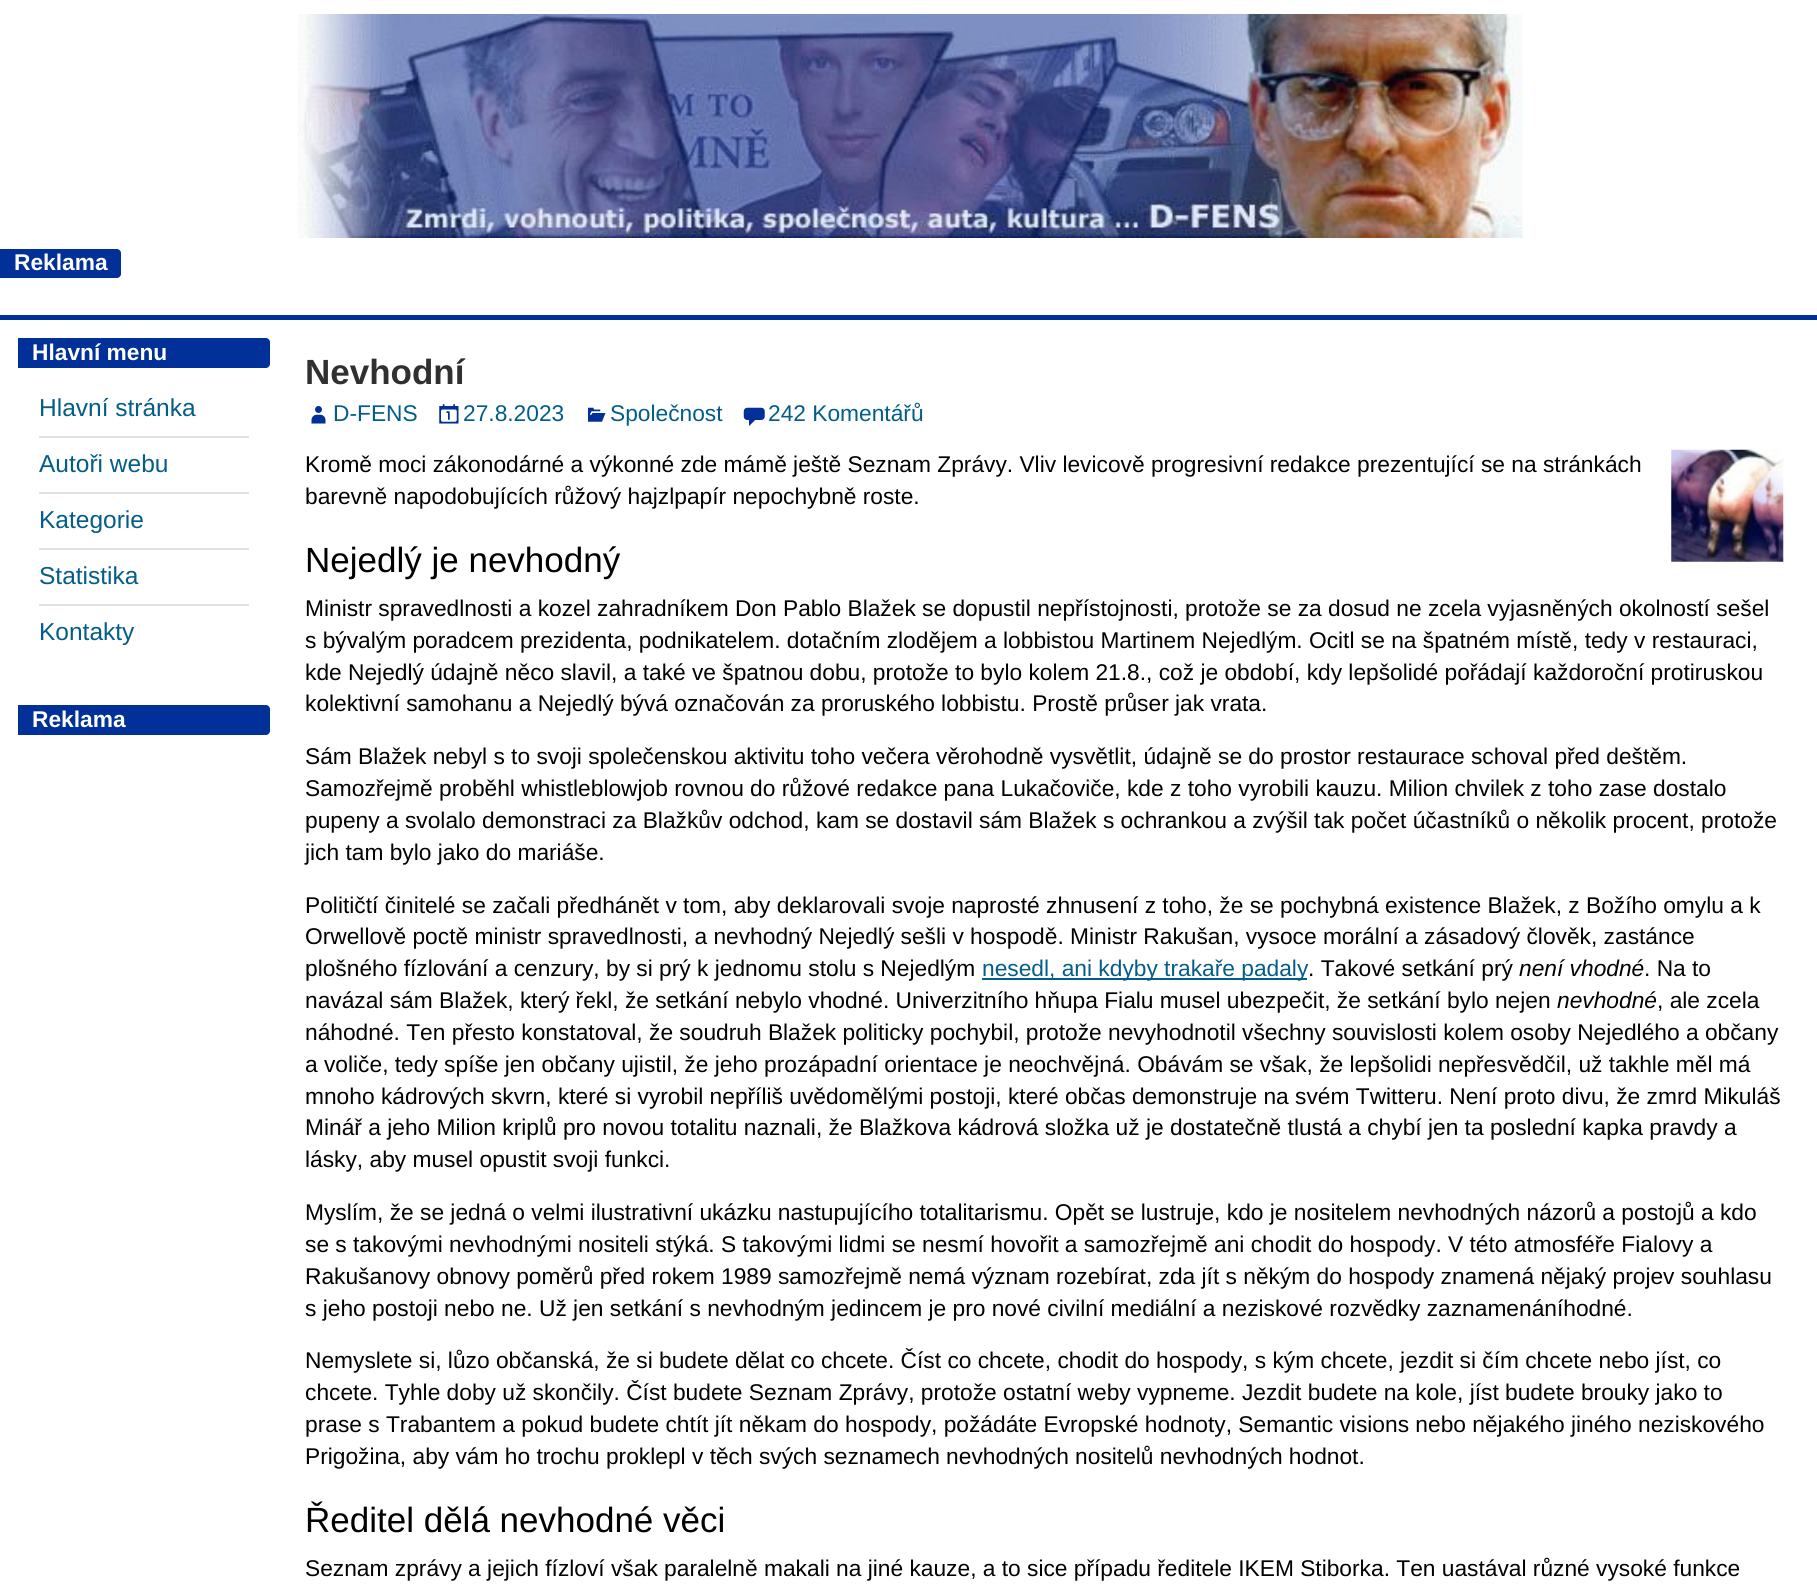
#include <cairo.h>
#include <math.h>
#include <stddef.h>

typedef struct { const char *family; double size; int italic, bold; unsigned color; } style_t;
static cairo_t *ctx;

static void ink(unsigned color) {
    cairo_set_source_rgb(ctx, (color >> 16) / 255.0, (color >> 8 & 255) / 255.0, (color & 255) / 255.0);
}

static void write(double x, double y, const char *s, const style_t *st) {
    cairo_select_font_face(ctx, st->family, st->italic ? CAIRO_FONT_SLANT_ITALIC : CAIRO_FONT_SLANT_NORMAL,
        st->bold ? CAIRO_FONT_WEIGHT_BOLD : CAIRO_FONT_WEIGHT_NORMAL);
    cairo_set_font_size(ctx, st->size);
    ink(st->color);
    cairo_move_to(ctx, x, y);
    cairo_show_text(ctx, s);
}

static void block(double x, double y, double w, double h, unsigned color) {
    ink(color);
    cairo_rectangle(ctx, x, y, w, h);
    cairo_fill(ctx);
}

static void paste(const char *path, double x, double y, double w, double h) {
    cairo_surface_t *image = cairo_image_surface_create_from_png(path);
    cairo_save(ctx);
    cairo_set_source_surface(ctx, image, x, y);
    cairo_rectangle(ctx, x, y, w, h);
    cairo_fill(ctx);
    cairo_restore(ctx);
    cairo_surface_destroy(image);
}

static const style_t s1 = {"Liberation Sans", 22.75, 0, 1, 0xffffff};
static const style_t s2 = {"Liberation Sans", 24.5, 0, 0, 0x035d8a};
static const style_t s3 = {"Liberation Sans", 35, 0, 1, 0x303030};
static const style_t s4 = {"Liberation Sans", 22.75, 0, 0, 0x035d8a};
static const style_t s5 = {"Liberation Sans", 22.75, 0, 0, 0x000000};
static const style_t s6 = {"Liberation Sans", 35, 0, 0, 0x000000};
static const style_t s7 = {"Liberation Sans", 22.75, 1, 0, 0x000000};

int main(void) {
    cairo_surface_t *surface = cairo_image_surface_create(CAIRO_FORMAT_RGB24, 1817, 1584);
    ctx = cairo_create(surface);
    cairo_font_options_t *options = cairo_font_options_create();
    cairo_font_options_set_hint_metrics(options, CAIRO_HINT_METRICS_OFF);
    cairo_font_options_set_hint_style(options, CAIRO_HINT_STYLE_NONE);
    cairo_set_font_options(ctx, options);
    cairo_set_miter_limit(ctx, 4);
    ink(0xffffff);
    cairo_paint(ctx);
    block(0, 315, 1817, 5, 0x003098);
    paste("pic1.png", 297, 14, 1226, 224);
    cairo_new_path(ctx);
    cairo_move_to(ctx, 0, 249);
    cairo_line_to(ctx, 117, 249);
    cairo_curve_to(ctx, 119, 249, 121, 251, 121, 253);
    cairo_line_to(ctx, 121, 274);
    cairo_curve_to(ctx, 121, 276, 119, 278, 117, 278);
    cairo_line_to(ctx, 0, 278);
    cairo_close_path(ctx);
    cairo_fill(ctx);
    write(14, 270, "Reklama", &s1);
    ink(0x003098);
    cairo_new_path(ctx);
    cairo_move_to(ctx, 18, 338);
    cairo_line_to(ctx, 266, 338);
    cairo_curve_to(ctx, 268, 338, 270, 340, 270, 342);
    cairo_line_to(ctx, 270, 364);
    cairo_curve_to(ctx, 270, 366, 268, 368, 266, 368);
    cairo_line_to(ctx, 18, 368);
    cairo_close_path(ctx);
    cairo_fill(ctx);
    write(32, 360, "Hlavní menu", &s1);
    block(39, 436, 210, 2, 0xe0e0e0);
    write(39, 416, "Hlavní stránka", &s2);
    block(39, 492, 210, 2, 0xe0e0e0);
    write(39, 472, "Autoři webu", &s2);
    block(39, 548, 210, 2, 0xe0e0e0);
    write(39, 528, "Kategorie", &s2);
    block(39, 604, 210, 2, 0xe0e0e0);
    write(39, 584, "Statistika", &s2);
    write(39, 640, "Kontakty", &s2);
    ink(0x003098);
    cairo_new_path(ctx);
    cairo_move_to(ctx, 18, 705);
    cairo_line_to(ctx, 266, 705);
    cairo_curve_to(ctx, 268, 705, 270, 707, 270, 709);
    cairo_line_to(ctx, 270, 731);
    cairo_curve_to(ctx, 270, 733, 268, 735, 266, 735);
    cairo_line_to(ctx, 18, 735);
    cairo_close_path(ctx);
    cairo_fill(ctx);
    write(32, 727, "Reklama", &s1);
    write(305, 384, "Nevhodní", &s3);
    paste("pic2.png", 311, 406, 15, 18);
    write(333, 421, "D-FENS", &s4);
    paste("pic3.png", 439, 404, 20, 20);
    write(463, 421, "27.8.2023", &s4);
    paste("pic4.png", 588, 407, 18, 15);
    write(610, 421, "Společnost", &s4);
    paste("pic5.png", 743, 407, 22, 19);
    write(768, 421, "242 Komentářů", &s4);
    write(305, 472, "Kromě moci zákonodárné a výkonné zde mámě ještě Seznam Zprávy. Vliv levicově progresivní redakce prezentující se na stránkách", &s5);
    write(305, 504, "barevně napodobujících růžový hajzlpapír nepochybně roste.", &s5);
    paste("pic6.png", 1671, 449, 113, 113);
    write(305, 572, "Nejedlý je nevhodný", &s6);
    write(305, 616, "Ministr spravedlnosti a kozel zahradníkem Don Pablo Blažek se dopustil nepřístojnosti, protože se za dosud ne zcela vyjasněných okolností sešel", &s5);
    write(305, 648, "s bývalým poradcem prezidenta, podnikatelem. dotačním zlodějem a lobbistou Martinem Nejedlým. Ocitl se na špatném místě, tedy v restauraci,", &s5);
    write(305, 680, "kde Nejedlý údajně něco slavil, a také ve špatnou dobu, protože to bylo kolem 21.8., což je období, kdy lepšolidé pořádají každoroční protiruskou", &s5);
    write(305, 711, "kolektivní samohanu a Nejedlý bývá označován za proruského lobbistu. Prostě průser jak vrata.", &s5);
    write(305, 764, "Sám Blažek nebyl s to svoji společenskou aktivitu toho večera věrohodně vysvětlit, údajně se do prostor restaurace schoval před deštěm.", &s5);
    write(305, 796, "Samozřejmě proběhl whistleblowjob rovnou do růžové redakce pana Lukačoviče, kde z toho vyrobili kauzu. Milion chvilek z toho zase dostalo", &s5);
    write(305, 828, "pupeny a svolalo demonstraci za Blažkův odchod, kam se dostavil sám Blažek s ochrankou a zvýšil tak počet účastníků o několik procent, protože", &s5);
    write(305, 860, "jich tam bylo jako do mariáše.", &s5);
    write(305, 913, "Političtí činitelé se začali předhánět v tom, aby deklarovali svoje naprosté zhnusení z toho, že se pochybná existence Blažek, z Božího omylu a k", &s5);
    write(305, 944, "Orwellově poctě ministr spravedlnosti, a nevhodný Nejedlý sešli v hospodě. Ministr Rakušan, vysoce morální a zásadový člověk, zastánce", &s5);
    write(305, 976, "plošného fízlování a cenzury, by si prý k jednomu stolu s Nejedlým", &s5);
    block(982, 978, 325, 2, 0x035d8a);
    write(982, 976, "nesedl, ani kdyby trakaře padaly", &s4);
    write(1308, 976, ". Takové setkání prý", &s5);
    write(1519, 976, "není vhodné", &s7);
    write(1644, 976, ". Na to", &s5);
    write(305, 1008, "navázal sám Blažek, který řekl, že setkání nebylo vhodné. Univerzitního hňupa Fialu musel ubezpečit, že setkání bylo nejen", &s5);
    write(1557, 1008, "nevhodné", &s7);
    write(1657, 1008, ", ale zcela", &s5);
    write(305, 1040, "náhodné. Ten přesto konstatoval, že soudruh Blažek politicky pochybil, protože nevyhodnotil všechny souvislosti kolem osoby Nejedlého a občany", &s5);
    write(305, 1072, "a voliče, tedy spíše jen občany ujistil, že jeho prozápadní orientace je neochvějná. Obávám se však, že lepšolidi nepřesvědčil, už takhle měl má", &s5);
    write(305, 1104, "mnoho kádrových skvrn, které si vyrobil nepříliš uvědomělými postoji, které občas demonstruje na svém Twitteru. Není proto divu, že zmrd Mikuláš", &s5);
    write(305, 1135, "Minář a jeho Milion kriplů pro novou totalitu naznali, že Blažkova kádrová složka už je dostatečně tlustá a chybí jen ta poslední kapka pravdy a", &s5);
    write(305, 1167, "lásky, aby musel opustit svoji funkci.", &s5);
    write(305, 1220, "Myslím, že se jedná o velmi ilustrativní ukázku nastupujícího totalitarismu. Opět se lustruje, kdo je nositelem nevhodných názorů a postojů a kdo", &s5);
    write(305, 1252, "se s takovými nevhodnými nositeli stýká. S takovými lidmi se nesmí hovořit a samozřejmě ani chodit do hospody. V této atmosféře Fialovy a", &s5);
    write(305, 1284, "Rakušanovy obnovy poměrů před rokem 1989 samozřejmě nemá význam rozebírat, zda jít s někým do hospody znamená nějaký projev souhlasu", &s5);
    write(305, 1316, "s jeho postoji nebo ne. Už jen setkání s nevhodným jedincem je pro nové civilní mediální a neziskové rozvědky zaznamenáníhodné.", &s5);
    write(305, 1368, "Nemyslete si, lůzo občanská, že si budete dělat co chcete. Číst co chcete, chodit do hospody, s kým chcete, jezdit si čím chcete nebo jíst, co", &s5);
    write(305, 1400, "chcete. Tyhle doby už skončily. Číst budete Seznam Zprávy, protože ostatní weby vypneme. Jezdit budete na kole, jíst budete brouky jako to", &s5);
    write(305, 1432, "prase s Trabantem a pokud budete chtít jít někam do hospody, požádáte Evropské hodnoty, Semantic visions nebo nějakého jiného neziskového", &s5);
    write(305, 1464, "Prigožina, aby vám ho trochu proklepl v těch svých seznamech nevhodných nositelů nevhodných hodnot.", &s5);
    write(305, 1532, "Ředitel dělá nevhodné věci", &s6);
    write(305, 1576, "Seznam zprávy a jejich fízloví však paralelně makali na jiné kauze, a to sice případu ředitele IKEM Stiborka. Ten uastával různé vysoké funkce", &s5);
    cairo_surface_write_to_png(surface, "screenshot.png");
    cairo_font_options_destroy(options);
    cairo_destroy(ctx);
    cairo_surface_destroy(surface);
    return 0;
}
